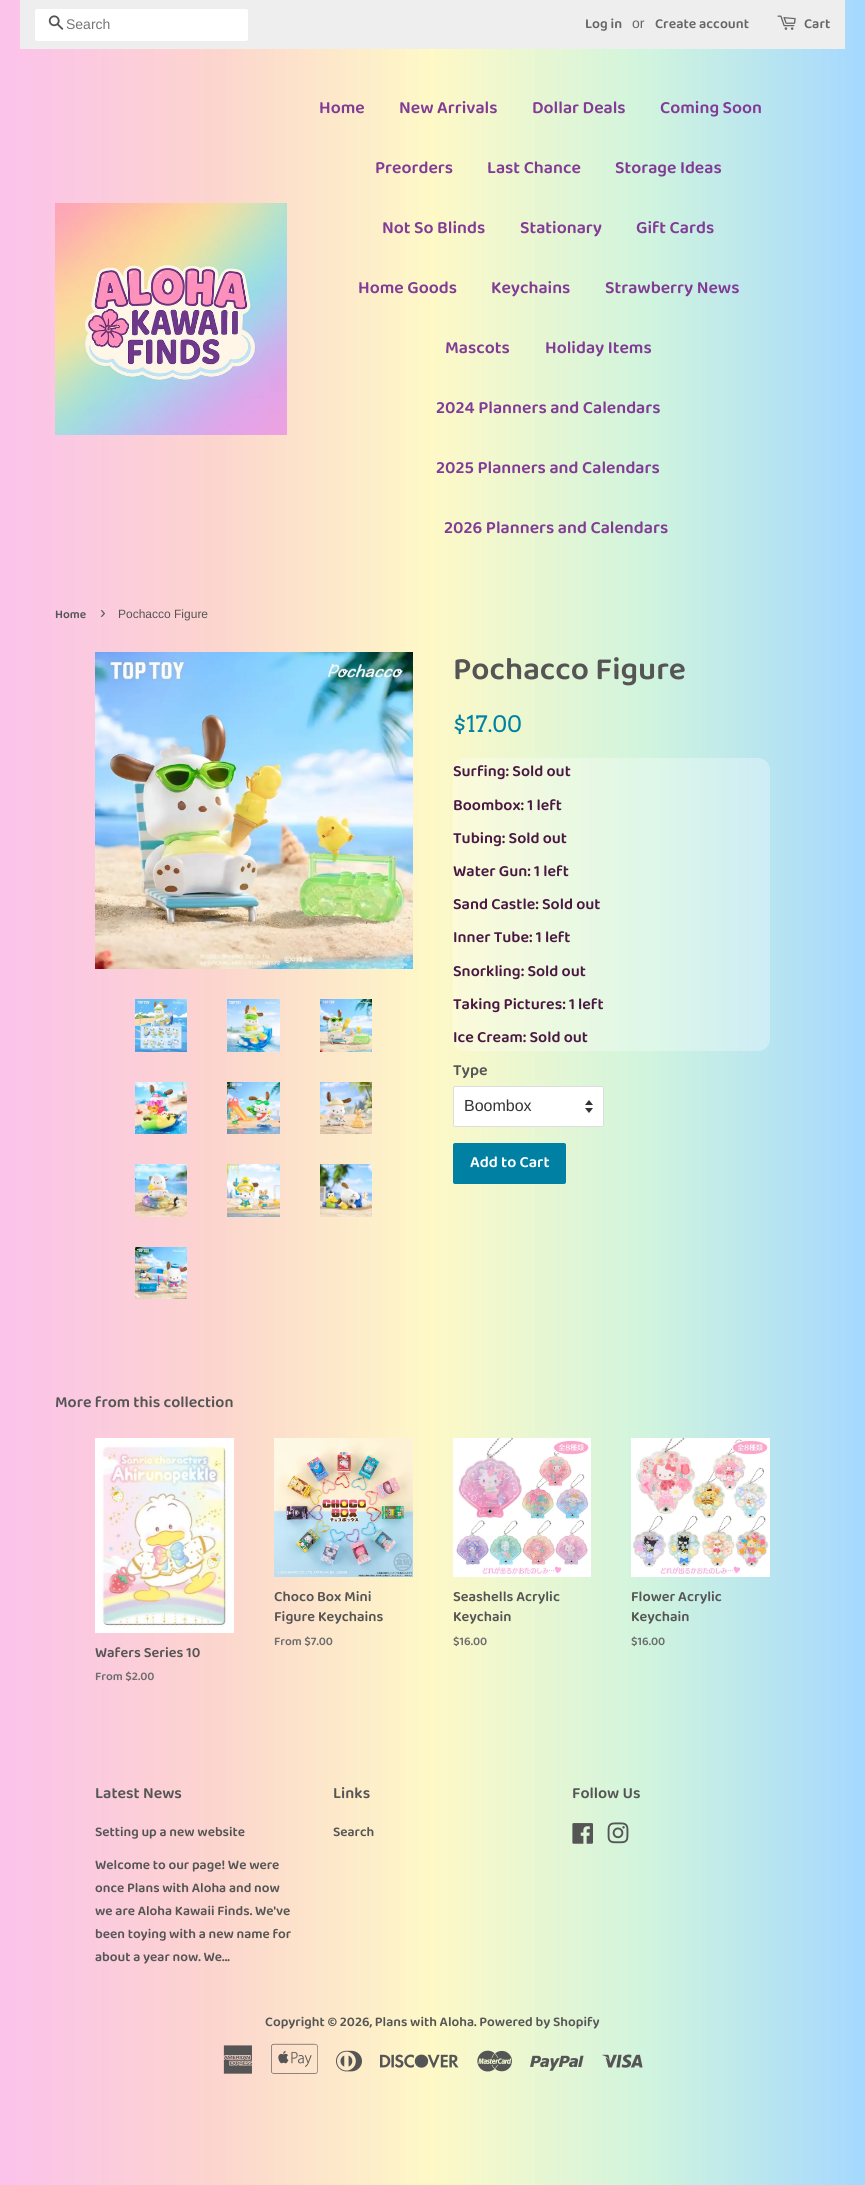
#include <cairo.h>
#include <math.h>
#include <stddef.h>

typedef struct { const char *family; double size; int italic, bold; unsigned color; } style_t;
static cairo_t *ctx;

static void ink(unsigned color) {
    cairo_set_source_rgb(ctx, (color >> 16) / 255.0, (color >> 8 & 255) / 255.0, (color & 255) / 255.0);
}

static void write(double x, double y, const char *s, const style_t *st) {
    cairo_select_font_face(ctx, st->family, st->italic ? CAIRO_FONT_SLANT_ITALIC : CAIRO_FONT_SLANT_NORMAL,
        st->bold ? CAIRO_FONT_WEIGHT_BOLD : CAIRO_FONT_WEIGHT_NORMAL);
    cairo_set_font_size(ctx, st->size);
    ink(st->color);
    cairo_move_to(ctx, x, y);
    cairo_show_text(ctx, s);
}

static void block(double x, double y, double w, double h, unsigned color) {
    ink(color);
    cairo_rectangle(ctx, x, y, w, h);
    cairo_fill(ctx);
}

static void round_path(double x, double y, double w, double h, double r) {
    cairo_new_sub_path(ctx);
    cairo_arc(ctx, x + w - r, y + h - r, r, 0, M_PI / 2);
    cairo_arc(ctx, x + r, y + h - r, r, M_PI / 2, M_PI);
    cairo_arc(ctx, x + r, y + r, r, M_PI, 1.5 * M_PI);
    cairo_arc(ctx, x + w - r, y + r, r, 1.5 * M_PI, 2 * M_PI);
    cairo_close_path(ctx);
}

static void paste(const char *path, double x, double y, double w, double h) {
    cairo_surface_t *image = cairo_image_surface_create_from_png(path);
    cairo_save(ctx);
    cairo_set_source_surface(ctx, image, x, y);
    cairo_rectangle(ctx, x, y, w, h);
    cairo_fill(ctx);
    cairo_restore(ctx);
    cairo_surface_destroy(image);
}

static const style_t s1 = {"Liberation Sans", 14, 0, 0, 0x757575};
static const style_t s2 = {"Baloo 2 SemiBold", 14, 0, 0, 0x666666};
static const style_t s3 = {"Liberation Sans", 14, 0, 0, 0x666666};
static const style_t s4 = {"Baloo 2 SemiBold", 17.6, 0, 0, 0x823c96};
static const style_t s5 = {"Baloo 2 SemiBold", 12, 0, 0, 0x555555};
static const style_t s6 = {"Liberation Sans", 17, 0, 0, 0x555555};
static const style_t s7 = {"Liberation Sans", 12, 0, 0, 0x555555};
static const style_t s8 = {"Baloo 2 SemiBold", 32, 0, 0, 0x555555};
static const style_t s9 = {"Arvo", 22.5, 0, 0, 0x0081a3};
static const style_t s10 = {"Baloo 2 SemiBold", 16, 0, 0, 0x4a1942};
static const style_t s11 = {"Baloo 2 SemiBold", 16, 0, 0, 0x555555};
static const style_t s12 = {"Liberation Sans", 16, 0, 0, 0x333333};
static const style_t s13 = {"Baloo 2 SemiBold", 16, 0, 0, 0xffffff};
static const style_t s14 = {"Baloo 2 SemiBold", 14.5, 0, 0, 0x555555};
static const style_t s15 = {"Baloo 2 SemiBold", 12, 0, 0, 0x6e6e6e};
static const style_t s16 = {"Baloo 2 SemiBold", 13.6, 0, 0, 0x555555};

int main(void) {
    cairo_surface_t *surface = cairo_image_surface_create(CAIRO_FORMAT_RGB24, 865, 2185);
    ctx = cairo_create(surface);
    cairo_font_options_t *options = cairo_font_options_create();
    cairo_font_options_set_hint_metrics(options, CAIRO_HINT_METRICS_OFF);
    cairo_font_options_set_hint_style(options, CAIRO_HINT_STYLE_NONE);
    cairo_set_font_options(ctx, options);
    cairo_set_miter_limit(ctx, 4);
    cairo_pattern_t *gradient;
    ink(0xffffff);
    cairo_paint(ctx);
    gradient = cairo_pattern_create_linear(0, 1093, 865, 1093);
    cairo_pattern_add_color_stop_rgba(gradient, 0, 0.984, 0.761, 0.922, 1);
    cairo_pattern_add_color_stop_rgba(gradient, 0.25, 0.988, 0.835, 0.808, 1);
    cairo_pattern_add_color_stop_rgba(gradient, 0.5, 0.996, 0.976, 0.78, 1);
    cairo_pattern_add_color_stop_rgba(gradient, 0.75, 0.816, 0.957, 0.871, 1);
    cairo_pattern_add_color_stop_rgba(gradient, 1, 0.647, 0.847, 1, 1);
    cairo_set_source(ctx, gradient);
    cairo_pattern_destroy(gradient);
    cairo_rectangle(ctx, 0, 0, 865, 2185);
    cairo_fill(ctx);
    block(20, 0, 825, 49, 0xeeeeee);
    ink(0xffffff);
    round_path(35, 9, 213, 32, 2);
    cairo_fill(ctx);
    paste("pic1.png", 48, 15, 16, 15);
    write(66, 29, "Search", &s1);
    write(585, 28, "Log in", &s2);
    write(632, 28, "or", &s3);
    write(655, 28, "Create account", &s2);
    paste("pic2.png", 777, 15, 19, 15);
    write(804, 28, "Cart", &s2);
    paste("pic3.png", 55, 203, 232, 232);
    write(319, 113, "Home", &s4);
    write(399, 113, "New Arrivals", &s4);
    write(532, 113, "Dollar Deals", &s4);
    write(660, 113, "Coming Soon", &s4);
    write(375, 173, "Preorders", &s4);
    write(487, 173, "Last Chance", &s4);
    write(615, 173, "Storage Ideas", &s4);
    write(382, 233, "Not So Blinds", &s4);
    write(520, 233, "Stationary", &s4);
    write(636, 233, "Gift Cards", &s4);
    write(358, 293, "Home Goods", &s4);
    write(491, 293, "Keychains", &s4);
    write(605, 293, "Strawberry News", &s4);
    write(445, 353, "Mascots", &s4);
    write(545, 353, "Holiday Items", &s4);
    write(436, 413, "2024 Planners and Calendars", &s4);
    write(436, 473, "2025 Planners and Calendars", &s4);
    write(444, 533, "2026 Planners and Calendars", &s4);
    write(55, 618, "Home", &s5);
    write(100, 618, "›", &s6);
    write(118, 618, "Pochacco Figure", &s7);
    paste("pic4.png", 95, 652, 318, 317);
    paste("pic5.png", 135, 999, 52, 53);
    paste("pic6.png", 227, 999, 53, 53);
    paste("pic7.png", 320, 999, 52, 53);
    paste("pic8.png", 135, 1082, 52, 52);
    paste("pic9.png", 227, 1082, 53, 52);
    paste("pic10.png", 320, 1082, 52, 52);
    paste("pic11.png", 135, 1164, 52, 53);
    paste("pic12.png", 227, 1164, 53, 53);
    paste("pic13.png", 320, 1164, 52, 53);
    paste("pic14.png", 135, 1247, 52, 52);
    write(453, 679, "Pochacco Figure", &s8);
    write(453, 732, "$17.00", &s9);
    cairo_set_source_rgba(ctx, 1, 1, 1, 0.3);
    round_path(453, 758, 317, 293, 12);
    cairo_fill(ctx);
    write(453, 776, "Surfing: Sold out", &s10);
    write(453, 810, "Boombox: 1 left", &s10);
    write(453, 843, "Tubing: Sold out", &s10);
    write(453, 876, "Water Gun: 1 left", &s10);
    write(453, 909, "Sand Castle: Sold out", &s10);
    write(453, 942, "Inner Tube: 1 left", &s10);
    write(453, 976, "Snorkling: Sold out", &s10);
    write(453, 1009, "Taking Pictures: 1 left", &s10);
    write(453, 1042, "Ice Cream: Sold out", &s10);
    write(453, 1075, "Type", &s11);
    ink(0xffffff);
    round_path(453, 1086, 151, 41, 2);
    cairo_fill(ctx);
    paste("pic15.png", 585, 1100, 8, 13);
    round_path(453.5, 1086.5, 150, 40, 1.5);
    ink(0xdddddd);
    cairo_set_line_width(ctx, 1);
    cairo_stroke(ctx);
    write(464, 1111, "Boombox", &s12);
    ink(0x0081a3);
    round_path(453, 1143, 113, 41, 2);
    cairo_fill(ctx);
    write(470, 1167, "Add to Cart", &s13);
    write(55, 1407, "More from this collection", &s11);
    paste("pic16.png", 274, 1438, 139, 139);
    write(274, 1601, "Choco Box Mini", &s14);
    write(274, 1621, "Figure Keychains", &s14);
    write(274, 1645, "From $7.00", &s15);
    paste("pic17.png", 453, 1438, 138, 139);
    write(453, 1601, "Seashells Acrylic", &s14);
    write(453, 1621, "Keychain", &s14);
    write(453, 1645, "$16.00", &s15);
    paste("pic18.png", 631, 1438, 139, 139);
    write(631, 1601, "Flower Acrylic", &s14);
    write(631, 1621, "Keychain", &s14);
    write(631, 1645, "$16.00", &s15);
    paste("pic19.png", 95, 1438, 139, 195);
    write(95, 1657, "Wafers Series 10", &s14);
    write(95, 1680, "From $2.00", &s15);
    write(95, 1798, "Latest News", &s11);
    write(95, 1836, "Setting up a new website", &s16);
    write(95, 1869, "Welcome to our page! We were", &s16);
    write(95, 1892, "once Plans with Aloha and now", &s16);
    write(95, 1915, "we are Aloha Kawaii Finds. We've", &s16);
    write(95, 1938, "been toying with a new name for", &s16);
    write(95, 1961, "about a year now. We...", &s16);
    write(333, 1798, "Links", &s11);
    write(333, 1836, "Search", &s16);
    write(572, 1798, "Follow Us", &s11);
    paste("pic20.png", 572, 1823, 21, 21);
    paste("pic21.png", 607, 1822, 22, 22);
    write(265, 2026, "Copyright © 2026, Plans with Aloha. Powered by Shopify", &s16);
    paste("pic22.png", 223, 2045, 30, 29);
    paste("pic23.png", 271, 2043, 47, 31);
    paste("pic24.png", 336, 2050, 26, 22);
    paste("pic25.png", 380, 2054, 79, 14);
    paste("pic26.png", 477, 2050, 35, 22);
    paste("pic27.png", 530, 2055, 54, 16);
    paste("pic28.png", 602, 2054, 41, 14);
    cairo_surface_write_to_png(surface, "screenshot.png");
    cairo_font_options_destroy(options);
    cairo_destroy(ctx);
    cairo_surface_destroy(surface);
    return 0;
}
